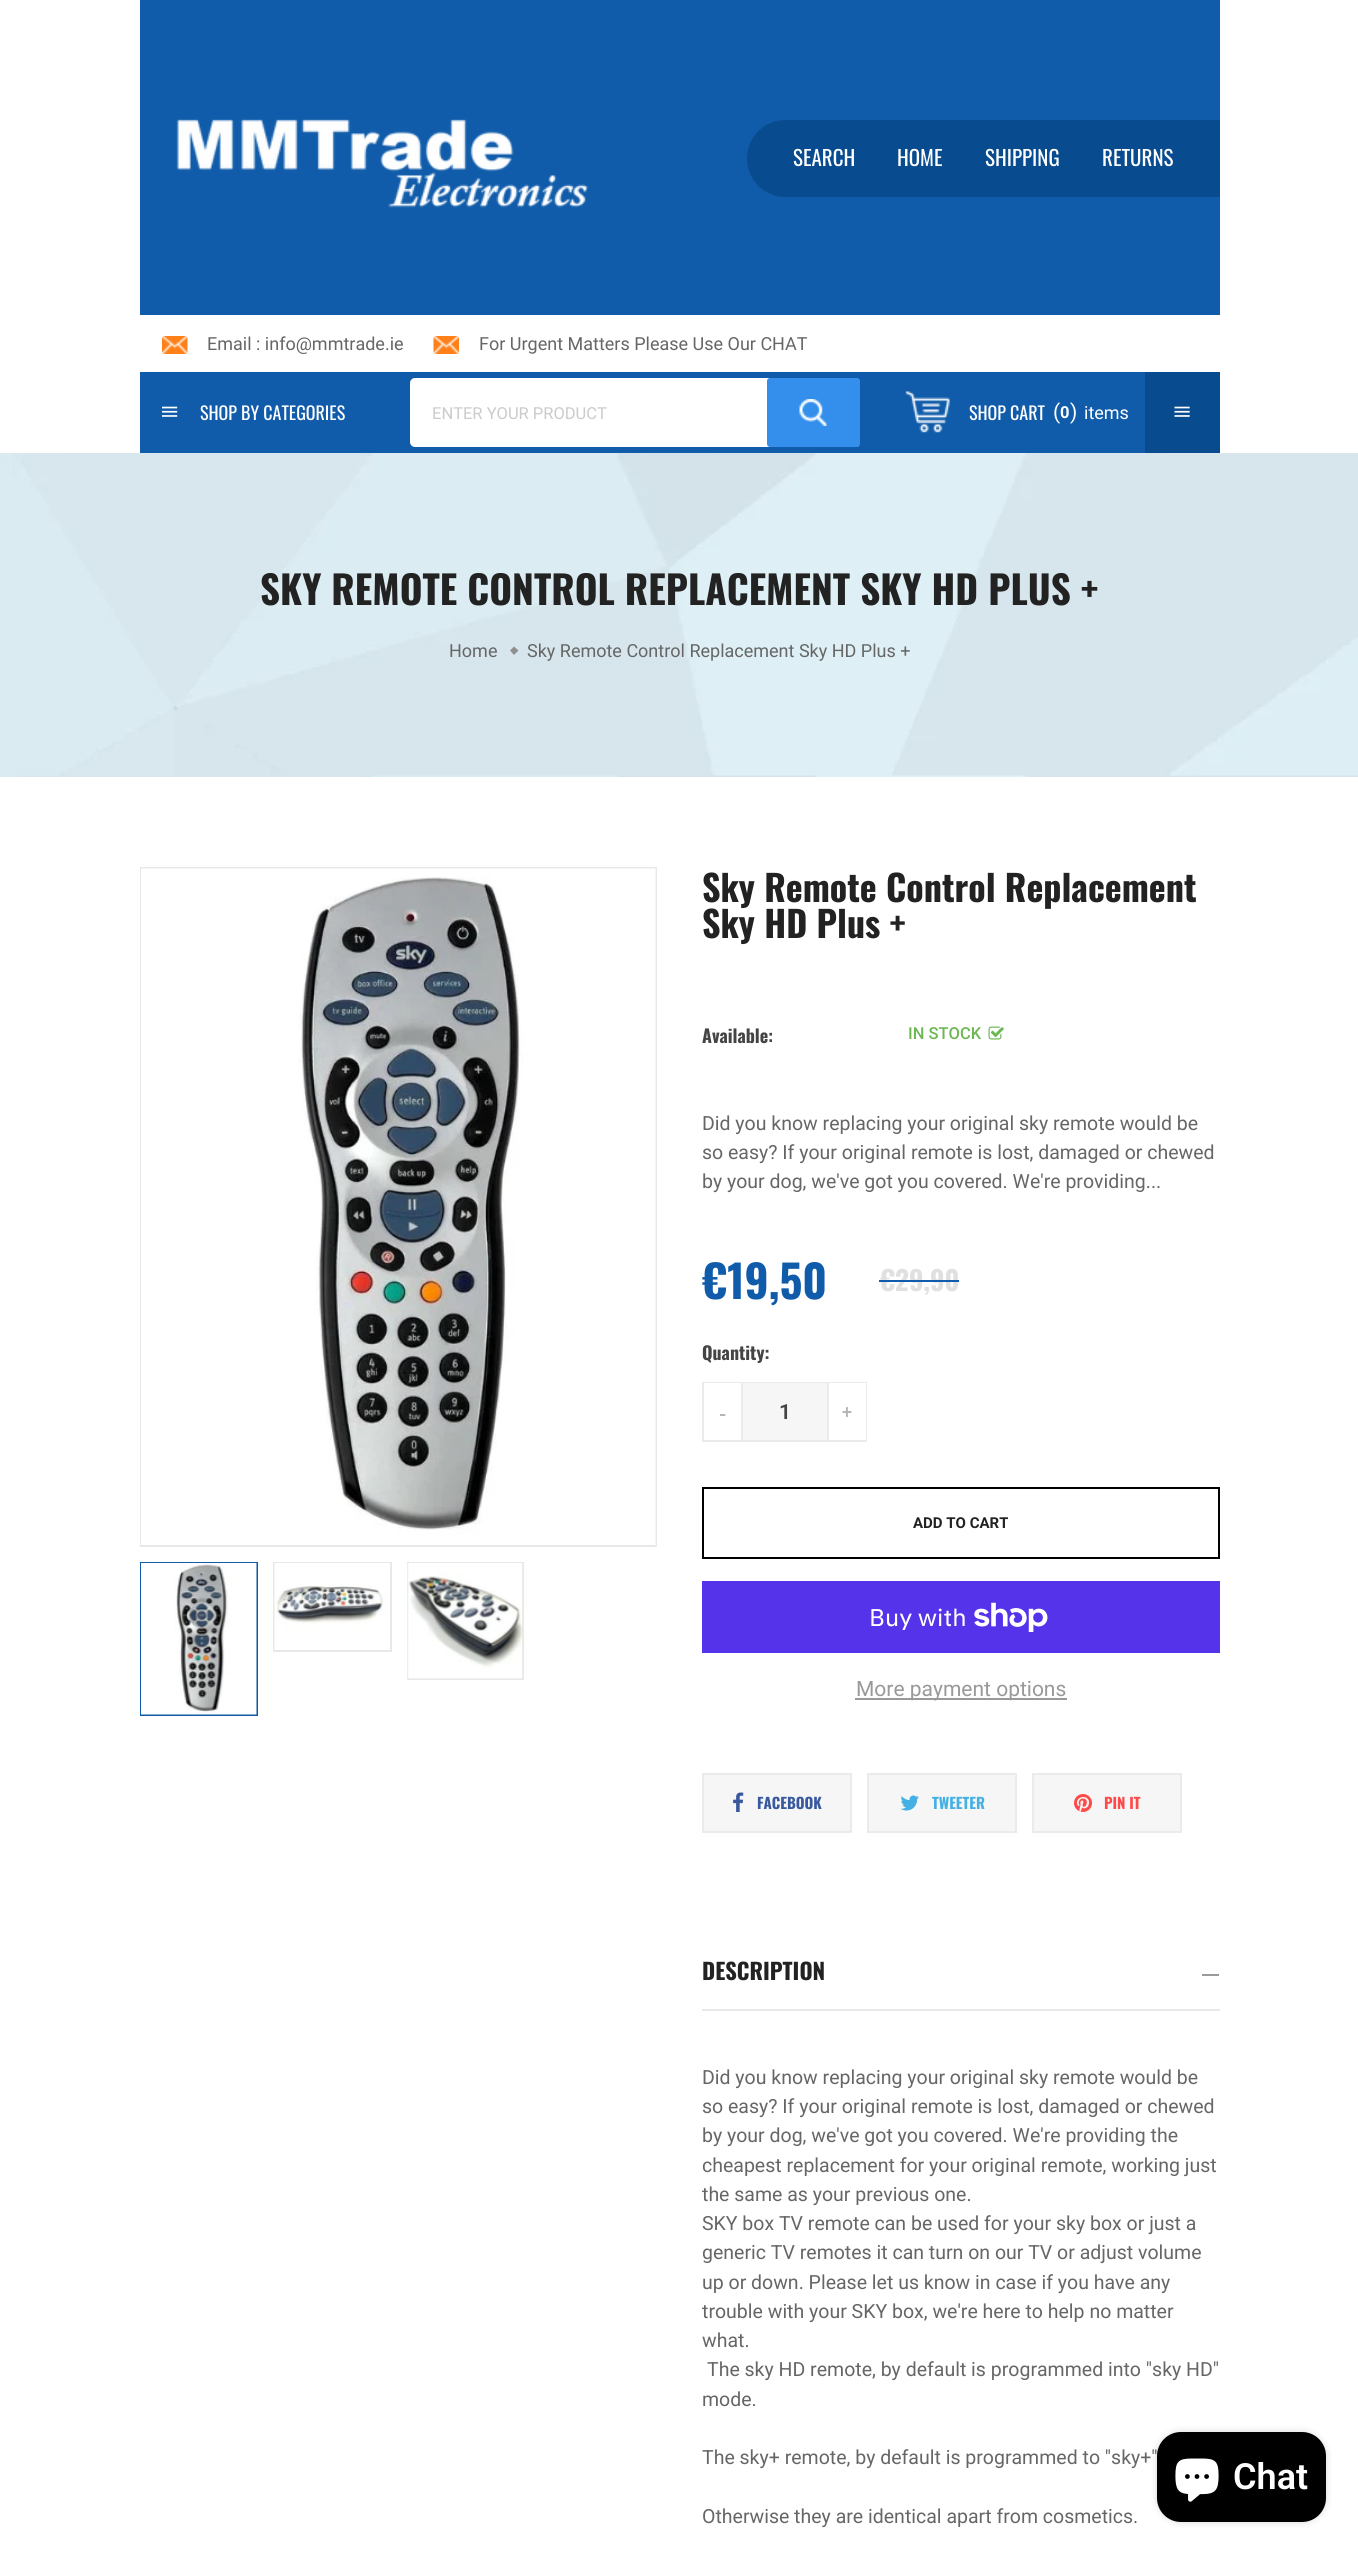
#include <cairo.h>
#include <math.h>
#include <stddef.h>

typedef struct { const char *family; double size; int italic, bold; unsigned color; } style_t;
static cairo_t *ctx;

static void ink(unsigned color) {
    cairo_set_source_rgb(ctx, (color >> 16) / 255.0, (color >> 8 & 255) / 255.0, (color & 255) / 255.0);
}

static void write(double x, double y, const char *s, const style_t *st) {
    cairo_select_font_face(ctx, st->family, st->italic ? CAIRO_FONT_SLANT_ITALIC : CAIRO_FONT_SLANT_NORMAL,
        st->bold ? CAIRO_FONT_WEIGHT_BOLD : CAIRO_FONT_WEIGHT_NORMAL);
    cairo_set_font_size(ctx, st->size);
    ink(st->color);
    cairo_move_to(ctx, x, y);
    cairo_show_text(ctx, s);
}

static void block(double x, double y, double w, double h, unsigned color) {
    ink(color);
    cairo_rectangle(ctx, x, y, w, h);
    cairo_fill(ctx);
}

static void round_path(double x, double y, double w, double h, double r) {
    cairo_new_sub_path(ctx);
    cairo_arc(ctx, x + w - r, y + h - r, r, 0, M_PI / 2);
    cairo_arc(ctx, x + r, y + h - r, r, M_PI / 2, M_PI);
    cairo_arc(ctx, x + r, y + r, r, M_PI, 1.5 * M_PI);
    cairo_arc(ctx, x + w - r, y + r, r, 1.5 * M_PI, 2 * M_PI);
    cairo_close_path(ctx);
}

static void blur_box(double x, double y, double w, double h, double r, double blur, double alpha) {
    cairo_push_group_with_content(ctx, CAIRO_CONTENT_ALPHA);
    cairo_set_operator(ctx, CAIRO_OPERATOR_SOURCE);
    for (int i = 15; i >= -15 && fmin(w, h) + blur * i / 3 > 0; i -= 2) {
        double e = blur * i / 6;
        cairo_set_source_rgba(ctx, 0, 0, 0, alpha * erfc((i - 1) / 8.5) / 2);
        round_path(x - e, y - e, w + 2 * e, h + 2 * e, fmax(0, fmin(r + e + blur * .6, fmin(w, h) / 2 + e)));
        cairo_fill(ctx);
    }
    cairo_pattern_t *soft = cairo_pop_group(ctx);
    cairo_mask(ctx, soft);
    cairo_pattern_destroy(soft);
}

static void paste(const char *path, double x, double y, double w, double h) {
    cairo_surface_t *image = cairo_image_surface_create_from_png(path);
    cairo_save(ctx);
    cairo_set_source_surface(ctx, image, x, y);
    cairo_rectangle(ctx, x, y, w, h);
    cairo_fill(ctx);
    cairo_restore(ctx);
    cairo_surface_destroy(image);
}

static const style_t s1 = {"Oswald", 21, 0, 0, 0xffffff};
static const style_t s2 = {"Roboto", 18, 0, 0, 0x666666};
static const style_t s3 = {"Oswald", 18, 0, 0, 0xffffff};
static const style_t s4 = {"Roboto", 16.5, 0, 0, 0xcccbcb};
static const style_t s5 = {"Roboto", 21, 0, 0, 0xffffff};
static const style_t s6 = {"Roboto", 16.5, 0, 1, 0xffffff};
static const style_t s7 = {"Roboto", 18, 0, 0, 0xffffff};
static const style_t s8 = {"Oswald", 39, 0, 1, 0x222222};
static const style_t s9 = {"Oswald", 36, 0, 1, 0x222222};
static const style_t s10 = {"Oswald", 18, 0, 1, 0x444444};
static const style_t s11 = {"Roboto Medium", 16.5, 0, 0, 0x6bb853};
static const style_t s12 = {"Roboto", 19.5, 0, 0, 0x666666};
static const style_t s13 = {"Oswald", 45, 0, 1, 0x105caa};
static const style_t s14 = {"Oswald", 27, 0, 1, 0xe0e0e0};
static const style_t s15 = {"Oswald", 24, 0, 0, 0xb4b4b4};
static const style_t s16 = {"Roboto SemiBold", 21, 0, 0, 0x444444};
static const style_t s17 = {"Roboto", 15, 0, 1, 0x222222};
static const style_t s18 = {"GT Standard", 24, 0, 0, 0xffffff};
static const style_t s19 = {"Roboto", 21, 0, 0, 0x999999};
static const style_t s20 = {"Oswald", 15, 0, 1, 0x39599f};
static const style_t s21 = {"Oswald", 15, 0, 1, 0x45b0e3};
static const style_t s22 = {"Oswald", 15, 0, 1, 0xff4a4a};
static const style_t s23 = {"Oswald", 22.5, 0, 1, 0x222222};
static const style_t s24 = {"Roboto SemiBold", 36, 0, 0, 0xffffff};

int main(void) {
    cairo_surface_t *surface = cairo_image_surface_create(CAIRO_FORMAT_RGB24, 1358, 2553);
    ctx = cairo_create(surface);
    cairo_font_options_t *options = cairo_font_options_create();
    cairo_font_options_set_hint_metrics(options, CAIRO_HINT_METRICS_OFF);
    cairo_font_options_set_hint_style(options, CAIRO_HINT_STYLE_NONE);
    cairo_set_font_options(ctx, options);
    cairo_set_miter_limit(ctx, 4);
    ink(0xffffff);
    cairo_paint(ctx);
    block(140, 0, 1080, 315, 0x105caa);
    paste("pic1.png", 176, 119, 413, 89);
    ink(0x084b8f);
    cairo_new_path(ctx);
    cairo_move_to(ctx, 785.5, 120);
    cairo_line_to(ctx, 1220, 120);
    cairo_line_to(ctx, 1220, 197);
    cairo_line_to(ctx, 785.5, 197);
    cairo_curve_to(ctx, 764, 197, 747, 180, 747, 158.5);
    cairo_curve_to(ctx, 747, 137, 764, 120, 785.5, 120);
    cairo_close_path(ctx);
    cairo_fill(ctx);
    write(793, 166, "SEARCH", &s1);
    write(897, 166, "HOME", &s1);
    write(985, 166, "SHIPPING", &s1);
    write(1102, 166, "RETURNS", &s1);
    paste("pic2.png", 162, 336, 26, 18);
    write(207, 350, "Email : info@mmtrade.ie", &s2);
    paste("pic3.png", 433, 336, 26, 18);
    write(479, 350, "For Urgent Matters Please Use Our CHAT", &s2);
    block(140, 372, 1005, 81, 0x105caa);
    paste("pic4.png", 162, 406, 16, 11);
    write(200, 420, "SHOP BY CATEGORIES", &s3);
    round_path(410, 378, 450, 69, 5);
    cairo_fill(ctx);
    write(432, 419, "ENTER YOUR PRODUCT", &s4);
    ink(0x348fec);
    round_path(767, 378, 93, 69, 3);
    cairo_fill(ctx);
    paste("pic5.png", 799, 399, 28, 27);
    paste("pic6.png", 905, 391, 45, 42);
    write(969, 420, "SHOP CART", &s3);
    write(1053, 419, "(", &s5);
    write(1060, 418, "0", &s6);
    write(1070, 419, ")", &s5);
    write(1084, 419, "items", &s7);
    block(1145, 372, 75, 81, 0x084b8f);
    paste("pic7.png", 1174, 406, 16, 11);
    paste("pic8.png", 0, 453, 1358, 324);
    write(260, 605, "SKY REMOTE CONTROL REPLACEMENT SKY HD PLUS +", &s8);
    write(449, 657, "Home", &s2);
    ink(0x909090);
    cairo_new_path(ctx);
    cairo_move_to(ctx, 514, 646.5);
    cairo_line_to(ctx, 518.5, 650.5);
    cairo_line_to(ctx, 514, 655);
    cairo_line_to(ctx, 510, 650.5);
    cairo_close_path(ctx);
    cairo_fill(ctx);
    write(527, 657, "Sky Remote Control Replacement Sky HD Plus +", &s2);
    cairo_rectangle(ctx, 141, 868, 515, 678);
    ink(0xe8e8e8);
    cairo_stroke(ctx);
    paste("pic9.png", 141, 868, 515, 677);
    cairo_rectangle(ctx, 141, 1563, 116, 152);
    ink(0x105caa);
    cairo_stroke(ctx);
    paste("pic10.png", 141, 1563, 116, 152);
    cairo_rectangle(ctx, 274, 1563, 117, 88);
    ink(0xe8e8e8);
    cairo_stroke(ctx);
    paste("pic11.png", 274, 1563, 116, 87);
    cairo_rectangle(ctx, 408, 1563, 115, 116);
    cairo_stroke(ctx);
    paste("pic12.png", 407, 1563, 116, 116);
    write(702, 902, "Sky Remote Control Replacement", &s9);
    write(702, 938, "Sky HD Plus +", &s9);
    write(702, 1043, "Available:", &s10);
    write(908, 1039, "IN STOCK", &s11);
    paste("pic13.png", 988, 1026, 16, 14);
    write(702, 1130, "Did you know replacing your original sky remote would be", &s12);
    write(702, 1159, "so easy? If your original remote is lost, damaged or chewed", &s12);
    write(702, 1188, "by your dog, we've got you covered. We're providing...", &s12);
    write(702, 1299, "€19,50", &s13);
    write(880, 1291, "€29,90", &s14);
    block(879, 1280, 80, 2, 0x105caa);
    write(702, 1360, "Quantity:", &s10);
    cairo_rectangle(ctx, 703, 1383, 163, 58);
    ink(0xebebeb);
    cairo_stroke(ctx);
    block(704, 1383, 37, 1, 0xffffff);
    block(741, 1383, 2, 57, 0xebebeb);
    write(719, 1422, "-", &s15);
    block(743, 1383, 84, 57, 0xf6f6f6);
    write(779, 1419, "1", &s16);
    block(829, 1383, 37, 57, 0xffffff);
    block(827, 1383, 2, 57, 0xebebeb);
    write(842, 1422, "+", &s15);
    cairo_rectangle(ctx, 703, 1488, 516, 70);
    ink(0x000000);
    cairo_stroke(ctx);
    write(913, 1528, "ADD TO CART", &s17);
    block(702, 1581, 518, 72, 0x5433eb);
    write(869, 1626, "Buy with", &s18);
    paste("pic14.png", 974, 1602, 74, 30);
    block(855, 1698, 212, 2, 0x999999);
    write(856, 1696, "More payment options", &s19);
    ink(0xf6f6f6);
    cairo_rectangle(ctx, 703, 1774, 148, 58);
    cairo_fill_preserve(ctx);
    ink(0xebebeb);
    cairo_stroke(ctx);
    paste("pic15.png", 733, 1792, 11, 20);
    write(757, 1809, "FACEBOOK", &s20);
    ink(0xf6f6f6);
    cairo_rectangle(ctx, 868, 1774, 148, 58);
    cairo_fill_preserve(ctx);
    ink(0xebebeb);
    cairo_stroke(ctx);
    paste("pic16.png", 900, 1795, 19, 16);
    write(932, 1809, "TWEETER", &s21);
    ink(0xf6f6f6);
    cairo_rectangle(ctx, 1033, 1774, 148, 58);
    cairo_fill_preserve(ctx);
    ink(0xebebeb);
    cairo_stroke(ctx);
    paste("pic17.png", 1074, 1794, 18, 18);
    write(1104, 1809, "PIN IT", &s22);
    block(702, 2009, 518, 2, 0xe8e8e8);
    write(702, 1980, "DESCRIPTION", &s23);
    block(1202, 1974, 17, 2, 0x9a9a9a);
    write(702, 2084, "Did you know replacing your original sky remote would be", &s12);
    write(702, 2113, "so easy? If your original remote is lost, damaged or chewed", &s12);
    write(702, 2142, "by your dog, we've got you covered. We're providing the", &s12);
    write(702, 2172, "cheapest replacement for your original remote, working just", &s12);
    write(702, 2201, "the same as your previous one.", &s12);
    write(702, 2230, "SKY box TV remote can be used for your sky box or just a", &s12);
    write(702, 2259, "generic TV remotes it can turn on our TV or adjust volume", &s12);
    write(702, 2289, "up or down. Please let us know in case if you have any", &s12);
    write(702, 2318, "trouble with your SKY box, we're here to help no matter", &s12);
    write(702, 2347, "what.", &s12);
    write(707, 2376, "The sky HD remote, by default is programmed into \"sky HD\"", &s12);
    write(702, 2406, "mode.", &s12);
    write(702, 2464, "The sky+ remote, by default is programmed to \"sky+\"", &s12);
    write(702, 2523, "Otherwise they are identical apart from cosmetics.", &s12);
    ink(0x000000);
    blur_box(1157, 2432, 169, 90, 24, 4, 0.15);
    ink(0x000000);
    round_path(1157, 2432, 169, 90, 24);
    cairo_fill(ctx);
    paste("pic18.png", 1175, 2458, 44, 44);
    write(1233, 2489, "Chat", &s24);
    cairo_surface_write_to_png(surface, "screenshot.png");
    cairo_font_options_destroy(options);
    cairo_destroy(ctx);
    cairo_surface_destroy(surface);
    return 0;
}
